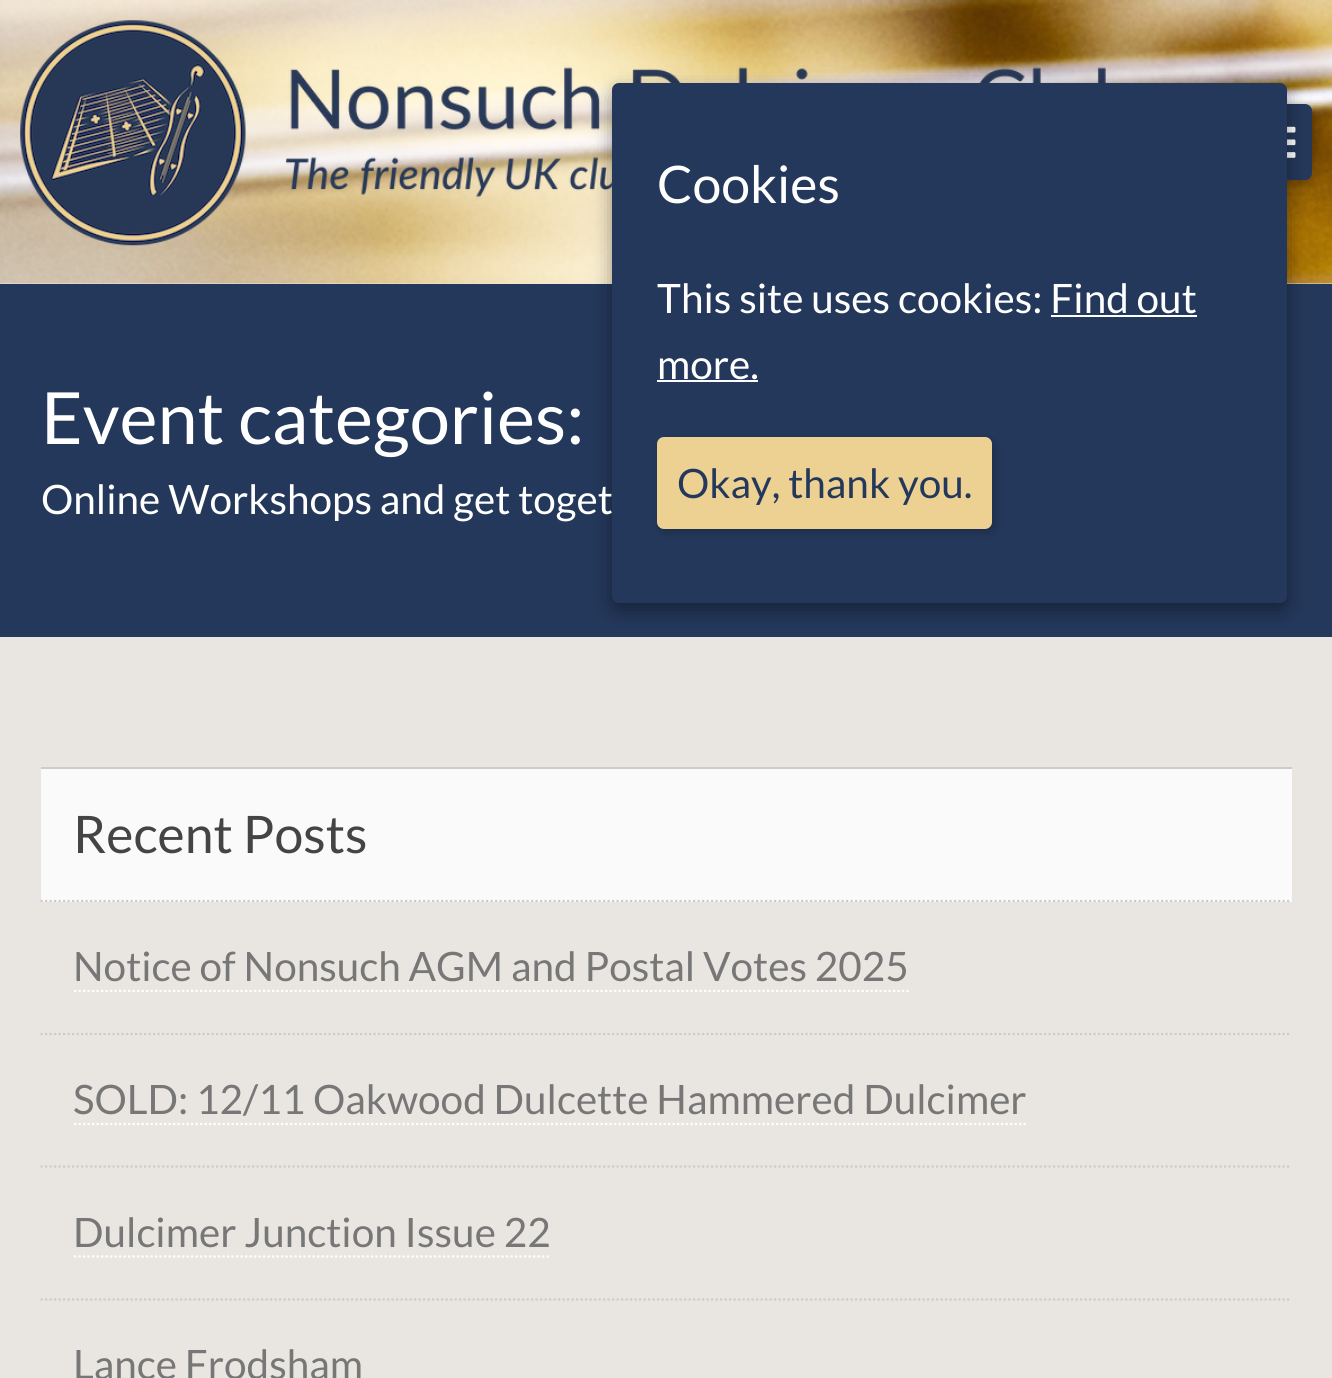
#include <cairo.h>
#include <math.h>
#include <stddef.h>

typedef struct { const char *family; double size; int italic, bold; unsigned color; } style_t;
static cairo_t *ctx;

static void ink(unsigned color) {
    cairo_set_source_rgb(ctx, (color >> 16) / 255.0, (color >> 8 & 255) / 255.0, (color & 255) / 255.0);
}

static void write(double x, double y, const char *s, const style_t *st) {
    cairo_select_font_face(ctx, st->family, st->italic ? CAIRO_FONT_SLANT_ITALIC : CAIRO_FONT_SLANT_NORMAL,
        st->bold ? CAIRO_FONT_WEIGHT_BOLD : CAIRO_FONT_WEIGHT_NORMAL);
    cairo_set_font_size(ctx, st->size);
    ink(st->color);
    cairo_move_to(ctx, x, y);
    cairo_show_text(ctx, s);
}

static void block(double x, double y, double w, double h, unsigned color) {
    ink(color);
    cairo_rectangle(ctx, x, y, w, h);
    cairo_fill(ctx);
}

static void round_path(double x, double y, double w, double h, double r) {
    cairo_new_sub_path(ctx);
    cairo_arc(ctx, x + w - r, y + h - r, r, 0, M_PI / 2);
    cairo_arc(ctx, x + r, y + h - r, r, M_PI / 2, M_PI);
    cairo_arc(ctx, x + r, y + r, r, M_PI, 1.5 * M_PI);
    cairo_arc(ctx, x + w - r, y + r, r, 1.5 * M_PI, 2 * M_PI);
    cairo_close_path(ctx);
}

static void blur_box(double x, double y, double w, double h, double r, double blur, double alpha) {
    cairo_push_group_with_content(ctx, CAIRO_CONTENT_ALPHA);
    cairo_set_operator(ctx, CAIRO_OPERATOR_SOURCE);
    for (int i = 15; i >= -15 && fmin(w, h) + blur * i / 3 > 0; i -= 2) {
        double e = blur * i / 6;
        cairo_set_source_rgba(ctx, 0, 0, 0, alpha * erfc((i - 1) / 8.5) / 2);
        round_path(x - e, y - e, w + 2 * e, h + 2 * e, fmax(0, fmin(r + e + blur * .6, fmin(w, h) / 2 + e)));
        cairo_fill(ctx);
    }
    cairo_pattern_t *soft = cairo_pop_group(ctx);
    cairo_mask(ctx, soft);
    cairo_pattern_destroy(soft);
}

static void paste(const char *path, double x, double y, double w, double h) {
    cairo_surface_t *image = cairo_image_surface_create_from_png(path);
    cairo_save(ctx);
    cairo_set_source_surface(ctx, image, x, y);
    cairo_rectangle(ctx, x, y, w, h);
    cairo_fill(ctx);
    cairo_restore(ctx);
    cairo_surface_destroy(image);
}

static const style_t s1 = {"Lato", 51.75, 0, 0, 0xffffff};
static const style_t s2 = {"Lato", 40.5, 0, 0, 0xffffff};
static const style_t s3 = {"Lato", 40.5, 0, 0, 0x24385b};
static const style_t s4 = {"Lato", 72, 0, 0, 0xffffff};
static const style_t s5 = {"Lato", 51.75, 0, 0, 0x444444};
static const style_t s6 = {"Lato", 40.5, 0, 0, 0x777777};

int main(void) {
    cairo_surface_t *surface = cairo_image_surface_create(CAIRO_FORMAT_RGB24, 1332, 1378);
    ctx = cairo_create(surface);
    cairo_font_options_t *options = cairo_font_options_create();
    cairo_font_options_set_hint_metrics(options, CAIRO_HINT_METRICS_OFF);
    cairo_font_options_set_hint_style(options, CAIRO_HINT_STYLE_NONE);
    cairo_set_font_options(ctx, options);
    cairo_set_miter_limit(ctx, 4);
    ink(0xe9e6e2);
    cairo_paint(ctx);
    paste("pic1.png", 0, 0, 1332, 284);
    paste("pic2.png", 20, 20, 1086, 226);
    ink(0x000000);
    blur_box(1244, 108, 70, 77, 7, 4.5, 0.2);
    ink(0x24385b);
    round_path(1242, 104, 70, 76, 7);
    cairo_fill(ctx);
    paste("pic3.png", 1287, 126, 9, 32);
    block(0, 284, 1332, 353, 0x24385b);
    ink(0x000000);
    blur_box(612, 90, 675, 520, 7, 10, 0.4);
    ink(0x24385b);
    round_path(612, 83, 675, 520, 7);
    cairo_fill(ctx);
    write(657, 203, "Cookies", &s1);
    write(657, 313, "This site uses cookies: Find out", &s2);
    write(657, 379, "more.", &s2);
    block(1051, 315, 146, 2, 0xffffff);
    block(657, 380, 101, 2, 0xffffff);
    ink(0x000000);
    blur_box(659, 441, 336, 92, 7, 4.5, 0.2);
    ink(0xedd192);
    round_path(657, 437, 335, 92, 7);
    cairo_fill(ctx);
    write(677, 498, "Okay, thank you.", &s3);
    write(41, 444, "Event categories:", &s4);
    write(41, 514, "Online Workshops and get toget", &s2);
    block(41, 769, 1251, 133, 0xfafafa);
    block(41, 767, 1251, 2, 0xcccccc);
    cairo_new_path(ctx);
    cairo_move_to(ctx, 40.5, 901);
    cairo_line_to(ctx, 1291.5, 901);
    cairo_set_line_width(ctx, 2.2);
    cairo_set_dash(ctx, (double[]){2.25, 2.25}, 2, 0);
    cairo_stroke(ctx);
    write(73, 853, "Recent Posts", &s5);
    cairo_new_path(ctx);
    cairo_move_to(ctx, 40.5, 1034);
    cairo_line_to(ctx, 1291.5, 1034);
    ink(0xcccccc);
    cairo_stroke(ctx);
    write(73, 981, "Notice of Nonsuch AGM and Postal Votes 2025", &s6);
    cairo_new_path(ctx);
    cairo_move_to(ctx, 74, 991);
    cairo_line_to(ctx, 909, 991);
    ink(0xffffff);
    cairo_stroke(ctx);
    cairo_new_path(ctx);
    cairo_move_to(ctx, 40.5, 1166.5);
    cairo_line_to(ctx, 1291.5, 1166.5);
    ink(0xcccccc);
    cairo_stroke(ctx);
    write(73, 1114, "SOLD: 12/11 Oakwood Dulcette Hammered Dulcimer", &s6);
    cairo_new_path(ctx);
    cairo_move_to(ctx, 74, 1124);
    cairo_line_to(ctx, 1026, 1124);
    ink(0xffffff);
    cairo_stroke(ctx);
    cairo_new_path(ctx);
    cairo_move_to(ctx, 40.5, 1299.5);
    cairo_line_to(ctx, 1291.5, 1299.5);
    ink(0xcccccc);
    cairo_stroke(ctx);
    write(73, 1247, "Dulcimer Junction Issue 22", &s6);
    cairo_new_path(ctx);
    cairo_move_to(ctx, 74, 1256.5);
    cairo_line_to(ctx, 551, 1256.5);
    ink(0xffffff);
    cairo_stroke(ctx);
    write(73, 1379, "Lance Frodsham", &s6);
    cairo_surface_write_to_png(surface, "screenshot.png");
    cairo_font_options_destroy(options);
    cairo_destroy(ctx);
    cairo_surface_destroy(surface);
    return 0;
}
